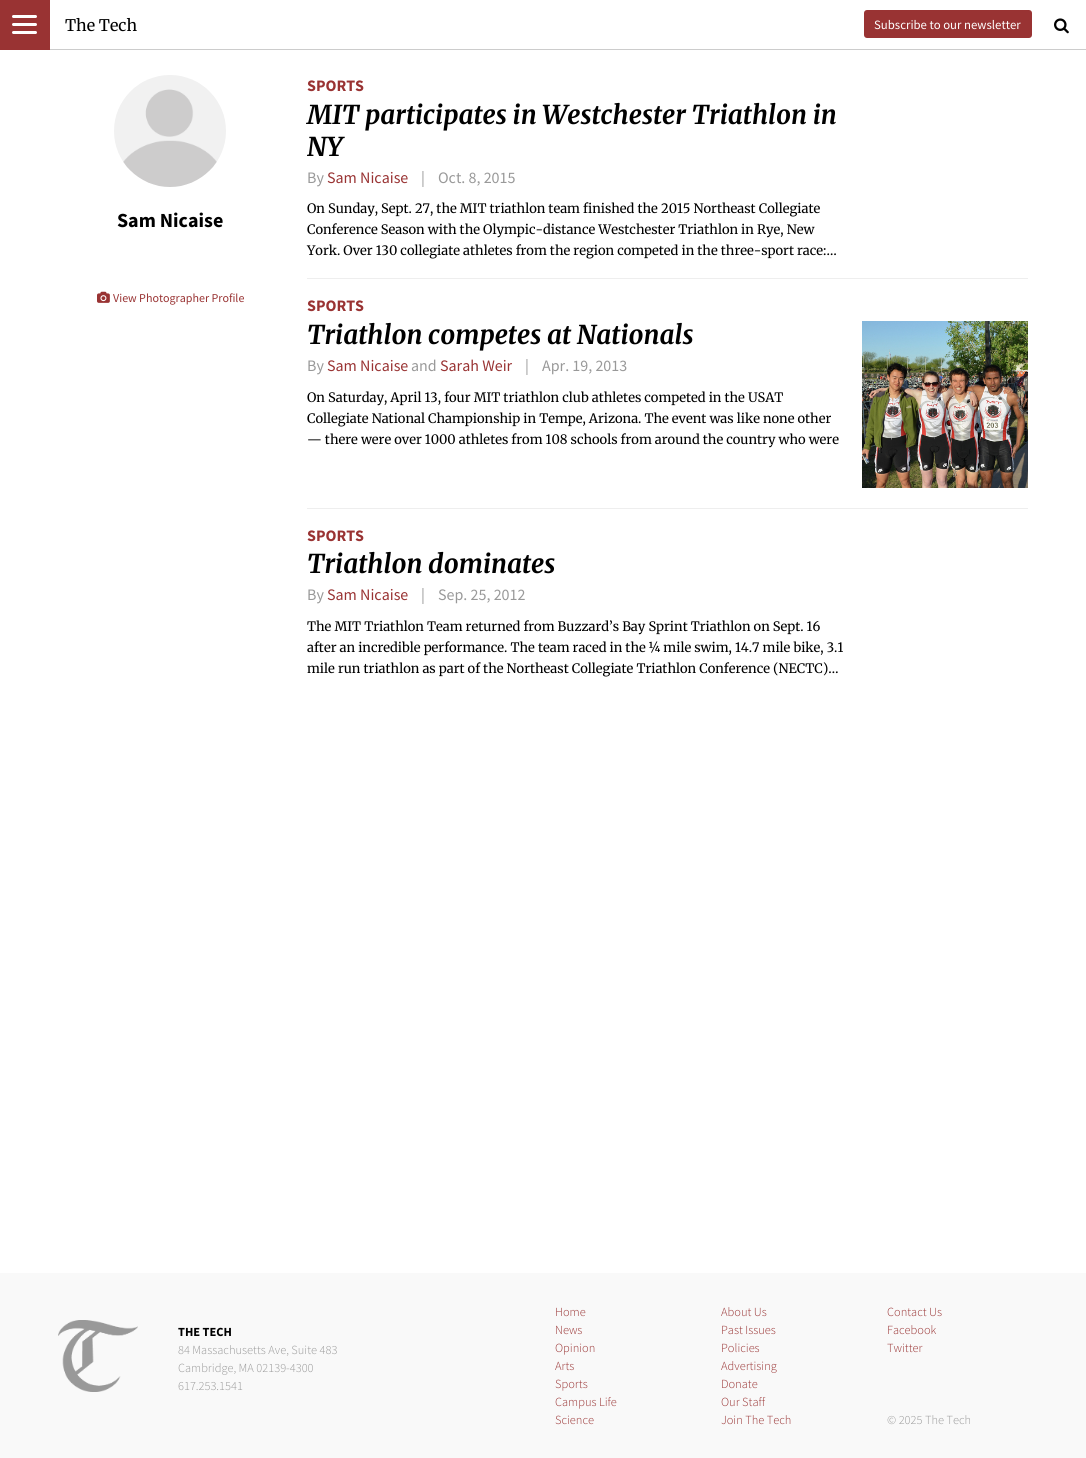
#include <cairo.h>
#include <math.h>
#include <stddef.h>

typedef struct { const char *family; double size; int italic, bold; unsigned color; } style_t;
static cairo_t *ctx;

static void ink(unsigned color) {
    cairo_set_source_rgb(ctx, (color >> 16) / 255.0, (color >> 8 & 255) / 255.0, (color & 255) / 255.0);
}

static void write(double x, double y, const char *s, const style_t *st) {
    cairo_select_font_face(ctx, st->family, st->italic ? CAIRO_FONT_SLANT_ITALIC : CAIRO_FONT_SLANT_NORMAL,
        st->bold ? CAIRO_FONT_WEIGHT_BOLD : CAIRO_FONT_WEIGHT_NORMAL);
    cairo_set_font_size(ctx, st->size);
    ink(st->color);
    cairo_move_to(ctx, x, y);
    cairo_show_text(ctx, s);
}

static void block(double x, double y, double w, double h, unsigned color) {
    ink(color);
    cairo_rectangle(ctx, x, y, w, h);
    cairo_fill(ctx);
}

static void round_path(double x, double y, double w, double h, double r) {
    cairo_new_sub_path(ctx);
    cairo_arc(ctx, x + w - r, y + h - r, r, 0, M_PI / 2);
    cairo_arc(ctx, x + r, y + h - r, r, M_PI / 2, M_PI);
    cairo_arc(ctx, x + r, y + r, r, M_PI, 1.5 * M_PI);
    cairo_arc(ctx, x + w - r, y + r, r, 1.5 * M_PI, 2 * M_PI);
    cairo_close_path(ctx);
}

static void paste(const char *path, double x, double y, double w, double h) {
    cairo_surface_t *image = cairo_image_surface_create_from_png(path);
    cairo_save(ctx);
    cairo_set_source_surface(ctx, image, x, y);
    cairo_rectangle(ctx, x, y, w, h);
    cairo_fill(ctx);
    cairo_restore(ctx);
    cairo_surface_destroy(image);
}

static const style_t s1 = {"Merriweather", 16, 0, 0, 0x000000};
static const style_t s2 = {"Source Sans Pro", 12.75, 0, 0, 0xffffff};
static const style_t s3 = {"Source Sans Pro", 20, 0, 1, 0x000000};
static const style_t s4 = {"Source Sans Pro", 12, 0, 0, 0x993333};
static const style_t s5 = {"Source Sans Pro", 16, 0, 1, 0x993333};
static const style_t s6 = {"Merriweather", 25.9, 1, 1, 0x000000};
static const style_t s7 = {"Source Sans Pro", 16, 0, 0, 0x999999};
static const style_t s8 = {"Source Sans Pro", 16, 0, 0, 0x993333};
static const style_t s9 = {"Merriweather", 12.95, 0, 0, 0x000000};
static const style_t s10 = {"Source Sans Pro", 12.4, 0, 1, 0x000000};
static const style_t s11 = {"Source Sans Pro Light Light", 12.4, 0, 0, 0x999999};
static const style_t s12 = {"Source Sans Pro Light Light", 12.4, 0, 0, 0x993333};

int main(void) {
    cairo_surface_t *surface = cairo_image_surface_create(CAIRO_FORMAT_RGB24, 1086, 1458);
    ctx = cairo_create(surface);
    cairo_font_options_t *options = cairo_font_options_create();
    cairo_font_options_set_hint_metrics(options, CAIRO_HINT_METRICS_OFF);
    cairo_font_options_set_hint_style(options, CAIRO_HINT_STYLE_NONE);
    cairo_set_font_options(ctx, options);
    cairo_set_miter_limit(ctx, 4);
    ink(0xffffff);
    cairo_paint(ctx);
    block(50, 49, 1036, 1, 0xcccccc);
    block(0, 0, 50, 50, 0x993333);
    ink(0xffffff);
    round_path(12, 15, 25, 3, 1.5);
    cairo_fill(ctx);
    round_path(12, 23, 25, 3, 1.5);
    cairo_fill(ctx);
    round_path(12, 31, 25, 3, 1.5);
    cairo_fill(ctx);
    write(65, 31, "The Tech", &s1);
    ink(0x993333);
    round_path(864, 10, 168, 28, 3);
    cairo_fill(ctx);
    write(874, 29, "Subscribe to our newsletter", &s2);
    paste("pic1.png", 1054, 18, 15, 16);
    paste("pic2.png", 114, 75, 112, 112);
    write(117, 227, "Sam Nicaise", &s3);
    paste("pic3.png", 97, 291, 13, 12);
    write(113, 302, "View Photographer Profile", &s4);
    write(307, 91, "SPORTS", &s5);
    write(307, 124, "MIT participates in Westchester Triathlon in", &s6);
    write(307, 156, "NY", &s6);
    write(307, 183, "By", &s7);
    write(327, 183, "Sam Nicaise", &s8);
    write(421, 183, "|", &s7);
    write(438, 183, "Oct. 8, 2015", &s7);
    write(307, 213, "On Sunday, Sept. 27, the MIT triathlon team finished the 2015 Northeast Collegiate", &s9);
    write(307, 234, "Conference Season with the Olympic-distance Westchester Triathlon in Rye, New", &s9);
    write(307, 255, "York. Over 130 collegiate athletes from the region competed in the three-sport race:…", &s9);
    block(307, 278, 721, 1, 0xeeeeee);
    write(307, 311, "SPORTS", &s5);
    write(307, 344, "Triathlon competes at Nationals", &s6);
    write(307, 371, "By", &s7);
    write(327, 371, "Sam Nicaise", &s8);
    write(411, 371, "and", &s7);
    write(440, 371, "Sarah Weir", &s8);
    write(525, 371, "|", &s7);
    write(542, 371, "Apr. 19, 2013", &s7);
    write(307, 402, "On Saturday, April 13, four MIT triathlon club athletes competed in the USAT", &s9);
    write(307, 423, "Collegiate National Championship in Tempe, Arizona. The event was like none other", &s9);
    write(307, 444, "— there were over 1000 athletes from 108 schools from around the country who were", &s9);
    paste("pic4.png", 862, 321, 166, 167);
    block(307, 508, 721, 1, 0xeeeeee);
    write(307, 541, "SPORTS", &s5);
    write(307, 573, "Triathlon dominates", &s6);
    write(307, 600, "By", &s7);
    write(327, 600, "Sam Nicaise", &s8);
    write(421, 600, "|", &s7);
    write(438, 600, "Sep. 25, 2012", &s7);
    write(307, 631, "The MIT Triathlon Team returned from Buzzard’s Bay Sprint Triathlon on Sept. 16", &s9);
    write(307, 652, "after an incredible performance. The team raced in the ¼ mile swim, 14.7 mile bike, 3.1", &s9);
    write(307, 673, "mile run triathlon as part of the Northeast Collegiate Triathlon Conference (NECTC)…", &s9);
    block(0, 1273, 1086, 185, 0xf9f9f9);
    paste("pic5.png", 58, 1320, 80, 72);
    write(178, 1336, "THE TECH", &s10);
    write(178, 1354, "84 Massachusetts Ave, Suite 483", &s11);
    write(178, 1372, "Cambridge, MA 02139-4300", &s11);
    write(178, 1390, "617.253.1541", &s11);
    write(555, 1316, "Home", &s12);
    write(555, 1334, "News", &s12);
    write(555, 1352, "Opinion", &s12);
    write(555, 1370, "Arts", &s12);
    write(555, 1388, "Sports", &s12);
    write(555, 1406, "Campus Life", &s12);
    write(555, 1424, "Science", &s12);
    write(721, 1316, "About Us", &s12);
    write(721, 1334, "Past Issues", &s12);
    write(721, 1352, "Policies", &s12);
    write(721, 1370, "Advertising", &s12);
    write(721, 1388, "Donate", &s12);
    write(721, 1406, "Our Staff", &s12);
    write(721, 1424, "Join The Tech", &s12);
    write(887, 1316, "Contact Us", &s12);
    write(887, 1334, "Facebook", &s12);
    write(887, 1352, "Twitter", &s12);
    write(887, 1424, "© 2025 The Tech", &s11);
    cairo_surface_write_to_png(surface, "screenshot.png");
    cairo_font_options_destroy(options);
    cairo_destroy(ctx);
    cairo_surface_destroy(surface);
    return 0;
}
